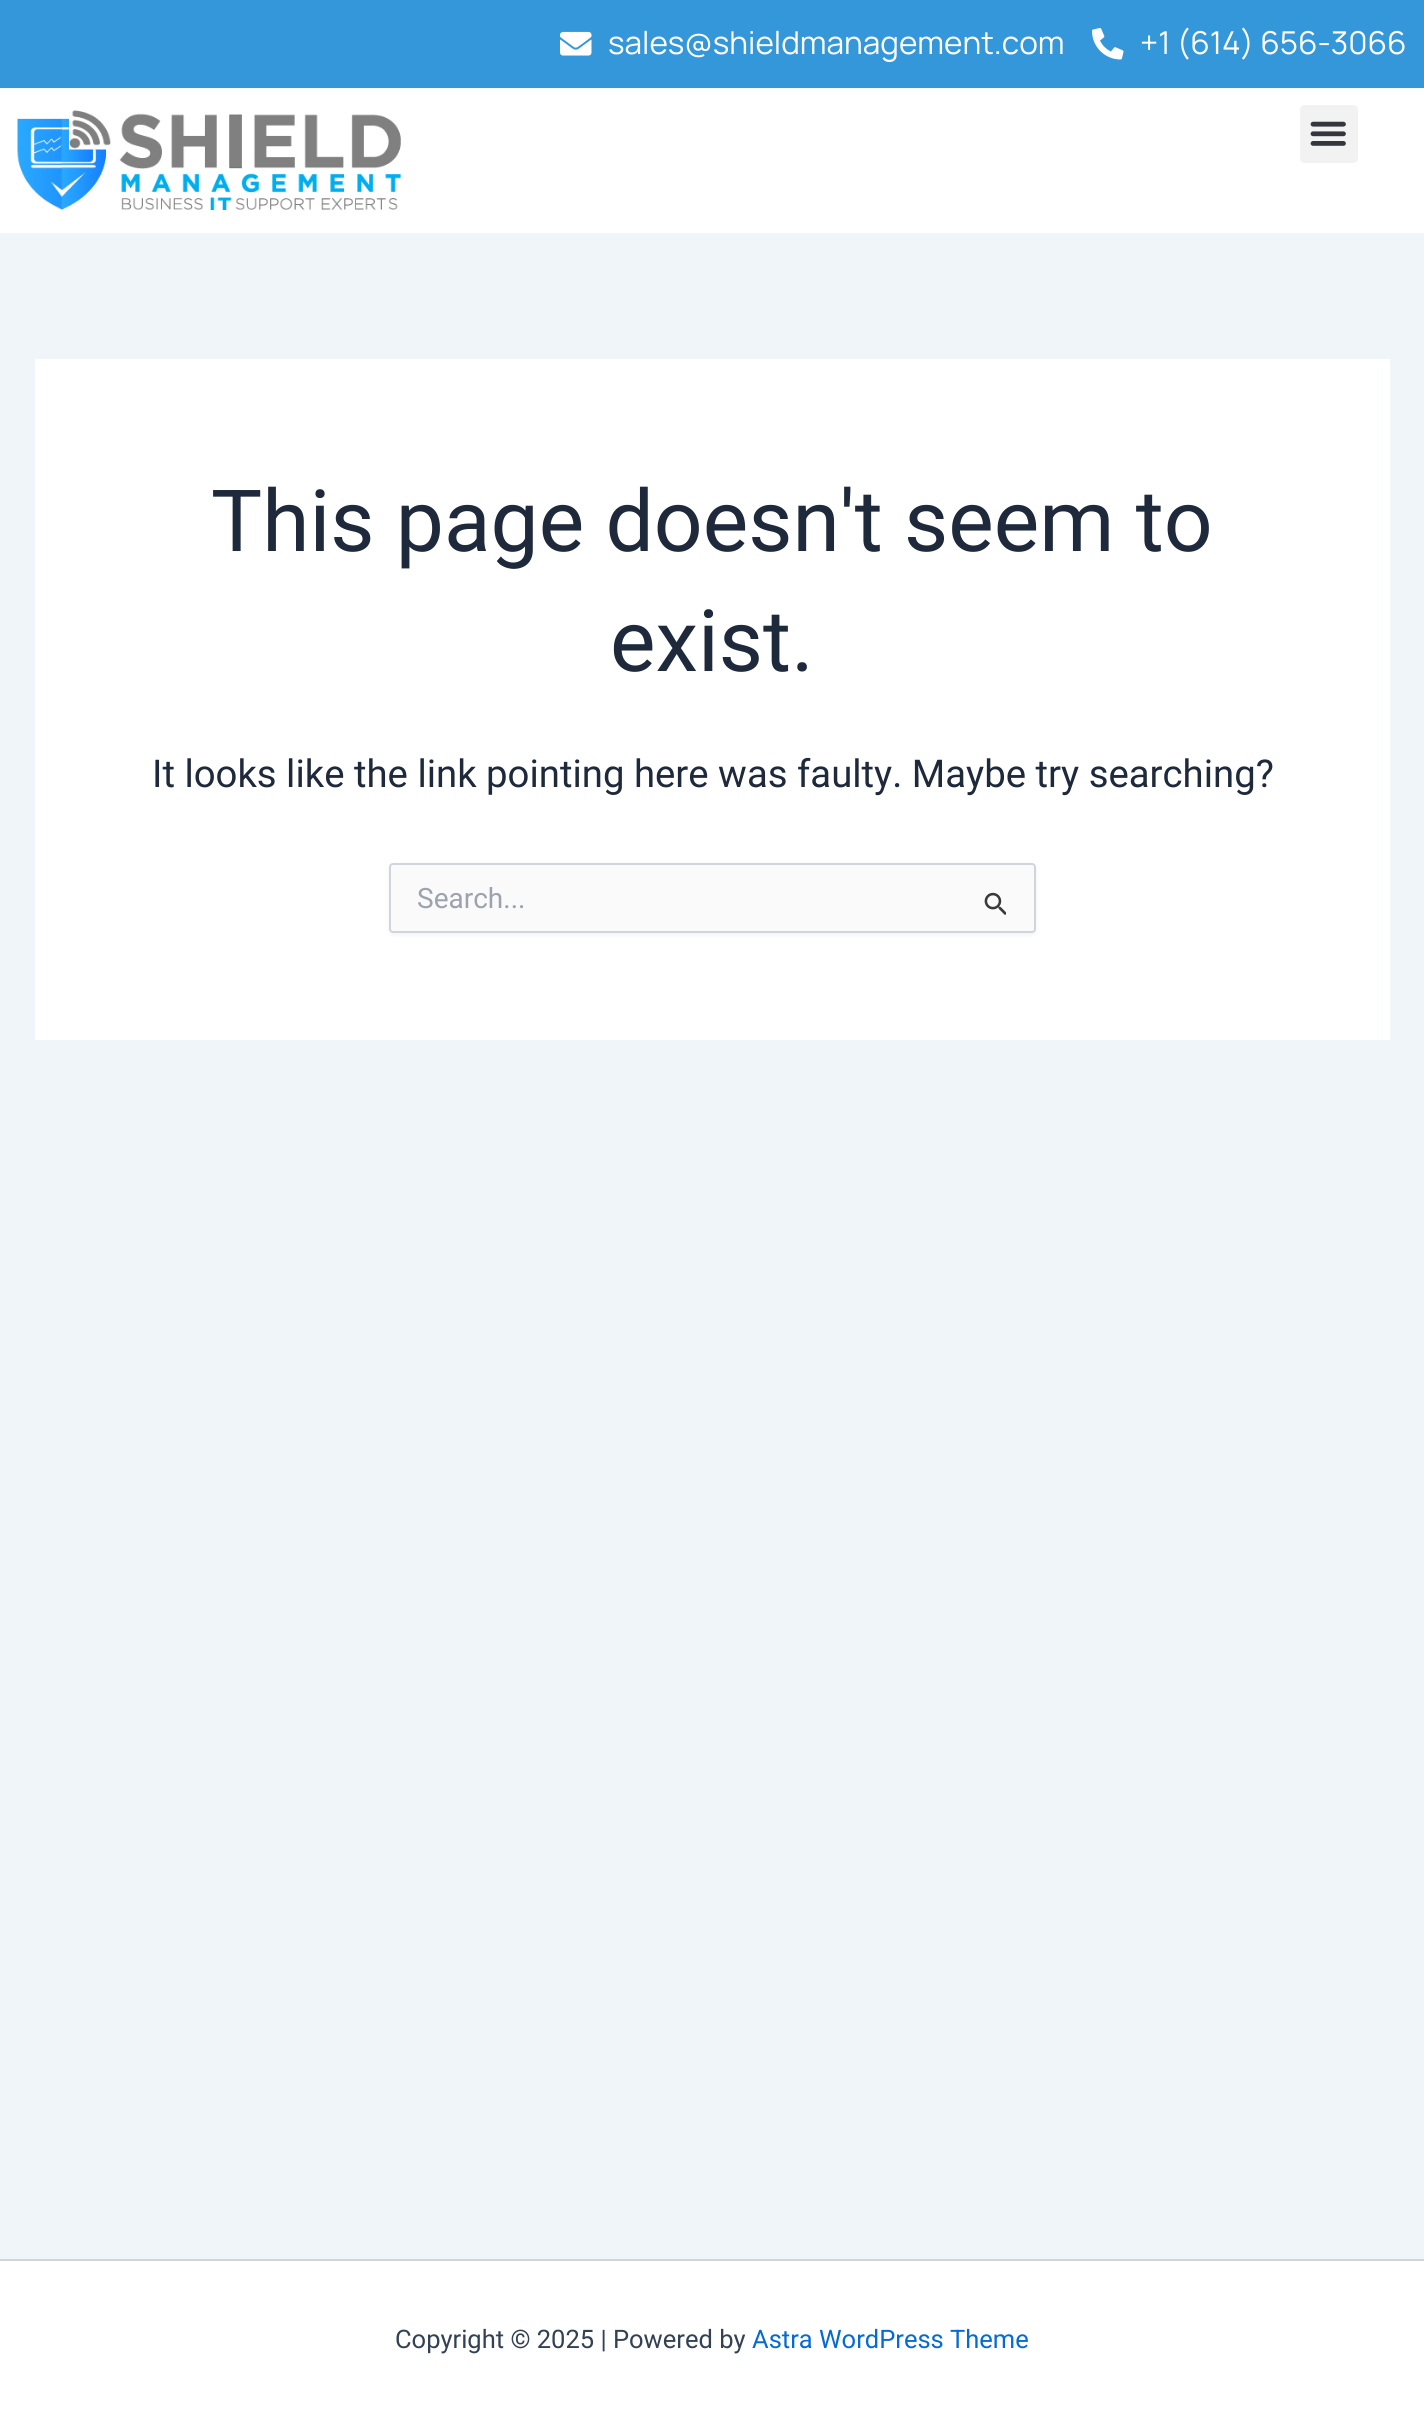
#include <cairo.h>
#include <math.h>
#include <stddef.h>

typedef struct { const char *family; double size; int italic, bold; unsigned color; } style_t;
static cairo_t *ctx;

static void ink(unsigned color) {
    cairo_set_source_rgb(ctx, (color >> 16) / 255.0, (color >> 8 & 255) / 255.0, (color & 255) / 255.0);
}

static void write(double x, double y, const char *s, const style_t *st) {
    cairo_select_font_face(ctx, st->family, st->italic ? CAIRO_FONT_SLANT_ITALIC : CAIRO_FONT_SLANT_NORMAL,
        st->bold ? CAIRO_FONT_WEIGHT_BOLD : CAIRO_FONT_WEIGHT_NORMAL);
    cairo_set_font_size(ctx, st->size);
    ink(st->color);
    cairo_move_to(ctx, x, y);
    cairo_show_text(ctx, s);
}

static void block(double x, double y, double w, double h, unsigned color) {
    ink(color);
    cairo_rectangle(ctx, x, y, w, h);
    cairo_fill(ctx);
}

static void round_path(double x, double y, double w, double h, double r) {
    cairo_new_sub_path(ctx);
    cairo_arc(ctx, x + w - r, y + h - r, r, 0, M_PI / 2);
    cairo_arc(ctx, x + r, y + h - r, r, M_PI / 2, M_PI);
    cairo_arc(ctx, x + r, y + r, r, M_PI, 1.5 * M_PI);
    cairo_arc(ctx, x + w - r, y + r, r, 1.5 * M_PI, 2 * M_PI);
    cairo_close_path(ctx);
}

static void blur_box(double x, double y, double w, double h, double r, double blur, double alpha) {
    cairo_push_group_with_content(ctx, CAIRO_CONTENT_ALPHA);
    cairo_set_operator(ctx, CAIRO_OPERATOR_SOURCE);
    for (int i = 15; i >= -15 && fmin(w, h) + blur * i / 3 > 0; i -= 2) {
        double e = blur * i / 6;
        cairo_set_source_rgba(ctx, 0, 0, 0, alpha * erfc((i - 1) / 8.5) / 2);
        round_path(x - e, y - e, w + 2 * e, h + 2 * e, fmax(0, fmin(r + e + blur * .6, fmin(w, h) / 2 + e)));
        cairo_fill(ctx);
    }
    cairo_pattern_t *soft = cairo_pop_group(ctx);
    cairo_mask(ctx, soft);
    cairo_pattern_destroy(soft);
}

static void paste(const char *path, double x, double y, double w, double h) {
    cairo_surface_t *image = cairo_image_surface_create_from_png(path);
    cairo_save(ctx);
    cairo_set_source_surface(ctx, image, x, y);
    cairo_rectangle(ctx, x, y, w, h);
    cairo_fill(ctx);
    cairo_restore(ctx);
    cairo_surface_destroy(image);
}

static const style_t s1 = {"Manrope", 31.5, 0, 0, 0xffffff};
static const style_t s2 = {"Roboto", 85.75, 0, 0, 0x1e293b};
static const style_t s3 = {"Roboto", 38.3, 0, 0, 0x1e293b};
static const style_t s4 = {"Roboto", 28, 0, 0, 0x9ca3af};
static const style_t s5 = {"Roboto", 25.5, 0, 0, 0x334155};
static const style_t s6 = {"Roboto", 25.5, 0, 0, 0x046bd2};

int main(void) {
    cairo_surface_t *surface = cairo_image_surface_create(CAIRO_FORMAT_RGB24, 1424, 2435);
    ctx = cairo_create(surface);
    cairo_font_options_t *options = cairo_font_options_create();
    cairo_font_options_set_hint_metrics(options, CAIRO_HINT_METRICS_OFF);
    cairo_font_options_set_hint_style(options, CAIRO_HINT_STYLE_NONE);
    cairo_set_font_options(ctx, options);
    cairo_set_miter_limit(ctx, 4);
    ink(0xf0f5fa);
    cairo_paint(ctx);
    block(0, 0, 1424, 88, 0x3497da);
    paste("pic1.png", 560, 31, 32, 25);
    write(608, 54, "sales@shieldmanagement.com", &s1);
    paste("pic2.png", 1092, 28, 32, 32);
    write(1140, 54, "+1 (614) 656-3066", &s1);
    block(0, 88, 1424, 145, 0xffffff);
    paste("pic3.png", 17, 110, 384, 100);
    ink(0xf2f2f2);
    round_path(1300, 105, 58, 58, 5);
    cairo_fill(ctx);
    paste("pic4.png", 1310, 121, 36, 25);
    block(35, 359, 1355, 681, 0xffffff);
    write(211, 551, "This page doesn't seem to", &s2);
    write(610, 671, "exist.", &s2);
    write(152, 787, "It looks like the link pointing here was faulty. Maybe try searching?", &s3);
    ink(0x000000);
    blur_box(389, 865, 647, 70, 4, 2, 0.05);
    ink(0xfafafa);
    round_path(390, 864, 645, 68, 3);
    cairo_fill_preserve(ctx);
    ink(0xd1d5db);
    cairo_stroke(ctx);
    write(417, 908, "Search...", &s4);
    paste("pic5.png", 984, 892, 22, 23);
    block(0, 2261, 1424, 174, 0xffffff);
    block(0, 2259, 1424, 2, 0xd1d5db);
    write(395, 2348, "Copyright © 2025 | Powered by", &s5);
    write(752, 2348, "Astra WordPress Theme", &s6);
    cairo_surface_write_to_png(surface, "screenshot.png");
    cairo_font_options_destroy(options);
    cairo_destroy(ctx);
    cairo_surface_destroy(surface);
    return 0;
}
